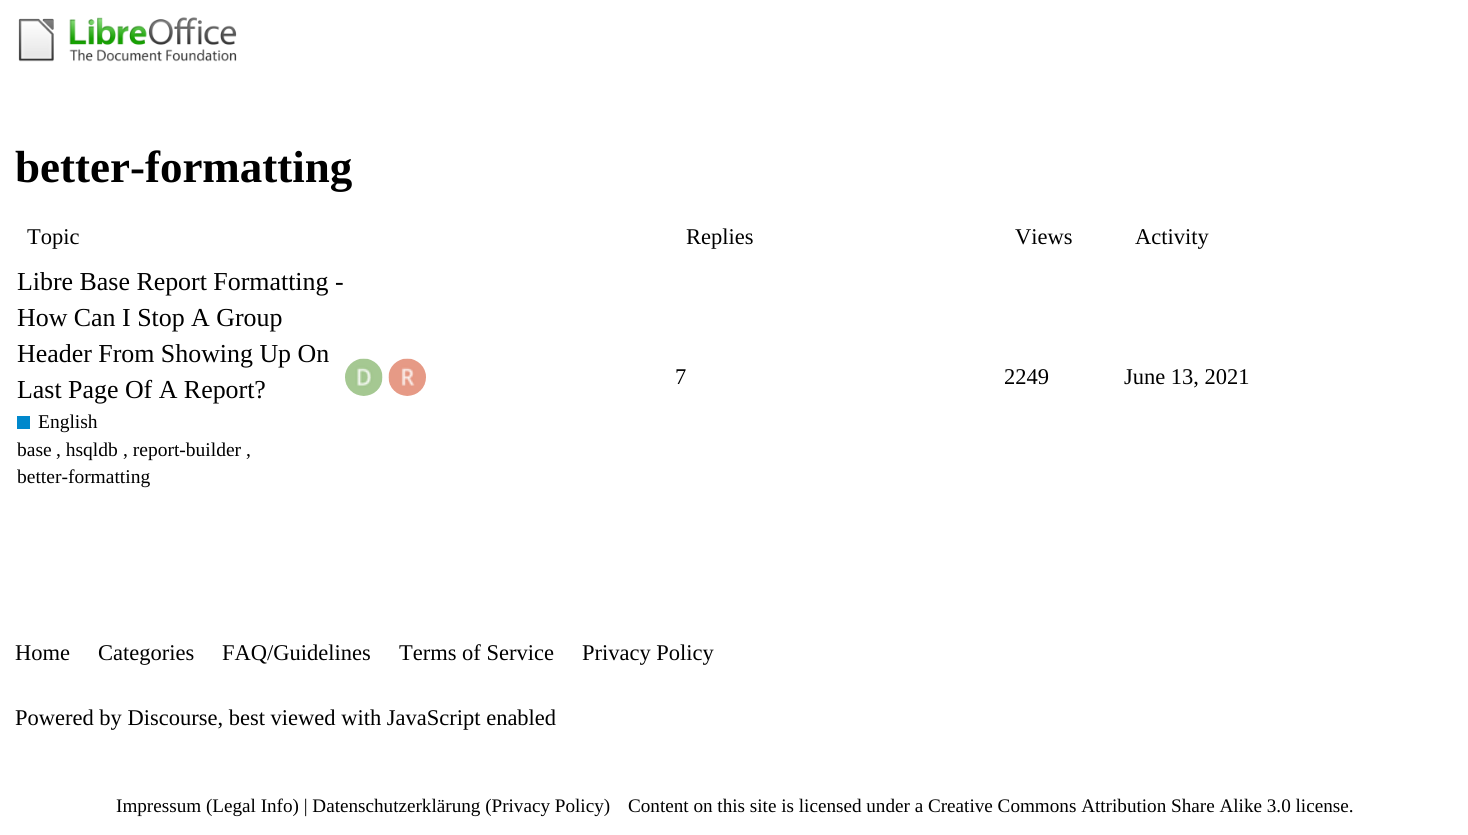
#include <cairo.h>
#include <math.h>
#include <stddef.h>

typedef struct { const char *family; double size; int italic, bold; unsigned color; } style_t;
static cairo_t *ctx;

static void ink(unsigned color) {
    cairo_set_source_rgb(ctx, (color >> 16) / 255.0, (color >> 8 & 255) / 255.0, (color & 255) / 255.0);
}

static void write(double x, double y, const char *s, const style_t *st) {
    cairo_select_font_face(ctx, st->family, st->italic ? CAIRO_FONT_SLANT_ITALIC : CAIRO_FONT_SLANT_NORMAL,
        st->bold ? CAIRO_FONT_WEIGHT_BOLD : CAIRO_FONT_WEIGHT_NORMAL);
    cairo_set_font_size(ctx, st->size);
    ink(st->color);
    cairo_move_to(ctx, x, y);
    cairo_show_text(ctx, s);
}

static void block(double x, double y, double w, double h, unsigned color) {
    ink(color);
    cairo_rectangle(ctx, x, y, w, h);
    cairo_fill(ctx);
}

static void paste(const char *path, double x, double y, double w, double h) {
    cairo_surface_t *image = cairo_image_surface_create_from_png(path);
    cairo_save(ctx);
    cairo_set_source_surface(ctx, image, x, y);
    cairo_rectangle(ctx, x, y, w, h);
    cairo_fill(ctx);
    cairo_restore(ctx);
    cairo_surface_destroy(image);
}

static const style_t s1 = {"Liberation Serif", 45, 0, 1, 0x000000};
static const style_t s2 = {"Liberation Serif", 22.5, 0, 0, 0x000000};
static const style_t s3 = {"Liberation Serif", 25.9, 0, 0, 0x000000};
static const style_t s4 = {"Liberation Serif", 19.5, 0, 0, 0x000000};
static const style_t s5 = {"Liberation Serif", 19.15, 0, 0, 0x000000};

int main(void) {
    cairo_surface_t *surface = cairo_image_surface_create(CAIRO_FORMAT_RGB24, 1468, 835);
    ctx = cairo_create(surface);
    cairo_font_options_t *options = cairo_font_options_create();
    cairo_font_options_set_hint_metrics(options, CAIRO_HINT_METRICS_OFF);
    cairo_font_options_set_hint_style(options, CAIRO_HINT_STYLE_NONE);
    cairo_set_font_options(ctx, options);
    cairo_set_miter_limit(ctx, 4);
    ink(0xffffff);
    cairo_paint(ctx);
    paste("pic1.png", 18, 17, 219, 45);
    write(15, 182, "better-formatting", &s1);
    write(27, 244, "Topic", &s2);
    write(686, 244, "Replies", &s2);
    write(1015, 244, "Views", &s2);
    write(1135, 244, "Activity", &s2);
    write(17, 290, "Libre Base Report Formatting -", &s3);
    write(17, 326, "How Can I Stop A Group", &s3);
    write(17, 362, "Header From Showing Up On", &s3);
    write(17, 398, "Last Page Of A Report?", &s3);
    block(17, 416, 13, 13, 0x0088cc);
    write(38, 428, "English", &s4);
    write(17, 456, "base", &s4);
    write(56, 456, ", hsqldb", &s4);
    write(123, 456, ", report-builder", &s4);
    write(246, 456, ",", &s4);
    write(17, 483, "better-formatting", &s4);
    paste("pic2.png", 345, 358, 38, 38);
    paste("pic3.png", 388, 358, 38, 38);
    write(675, 384, "7", &s2);
    write(1004, 384, "2249", &s2);
    write(1124, 384, "June 13, 2021", &s2);
    write(15, 660, "Home", &s2);
    write(98, 660, "Categories", &s2);
    write(222, 660, "FAQ/Guidelines", &s2);
    write(399, 660, "Terms of Service", &s2);
    write(582, 660, "Privacy Policy", &s2);
    write(15, 725, "Powered by Discourse, best viewed with JavaScript enabled", &s2);
    write(116, 812, "Impressum (Legal Info) | Datenschutzerklärung (Privacy Policy)", &s5);
    write(628, 812, "Content on this site is licensed under a Creative Commons Attribution Share Alike 3.0 license.", &s5);
    cairo_surface_write_to_png(surface, "screenshot.png");
    cairo_font_options_destroy(options);
    cairo_destroy(ctx);
    cairo_surface_destroy(surface);
    return 0;
}
